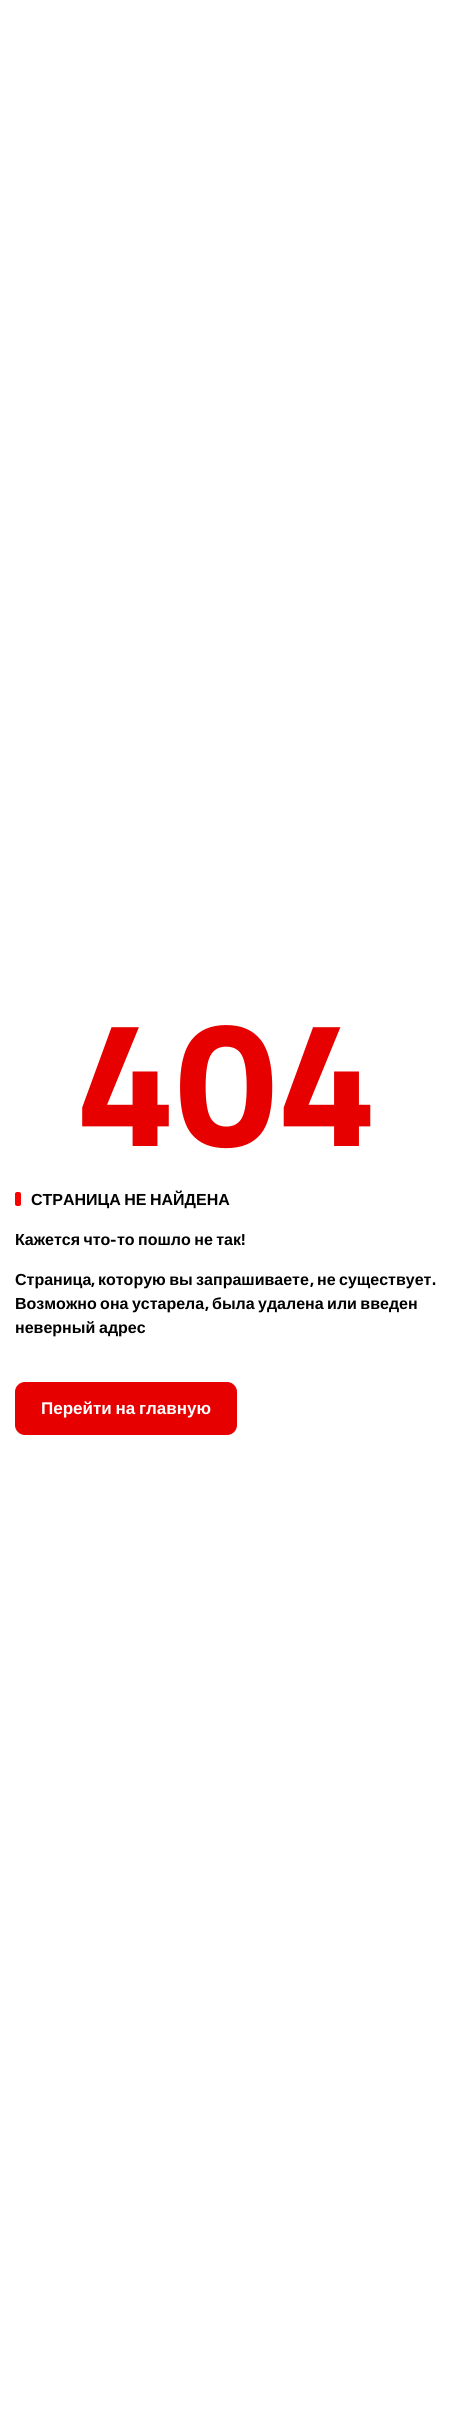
#include <cairo.h>
#include <math.h>
#include <stddef.h>

typedef struct { const char *family; double size; int italic, bold; unsigned color; } style_t;
static cairo_t *ctx;

static void ink(unsigned color) {
    cairo_set_source_rgb(ctx, (color >> 16) / 255.0, (color >> 8 & 255) / 255.0, (color & 255) / 255.0);
}

static void write(double x, double y, const char *s, const style_t *st) {
    cairo_select_font_face(ctx, st->family, st->italic ? CAIRO_FONT_SLANT_ITALIC : CAIRO_FONT_SLANT_NORMAL,
        st->bold ? CAIRO_FONT_WEIGHT_BOLD : CAIRO_FONT_WEIGHT_NORMAL);
    cairo_set_font_size(ctx, st->size);
    ink(st->color);
    cairo_move_to(ctx, x, y);
    cairo_show_text(ctx, s);
}

static void write_spaced(double x, double y, const char *s, double letter, double word) {
    cairo_move_to(ctx, x, y);
    while (*s) {
        char ch[5] = {0};
        int n = 0;
        do ch[n++] = *s++; while ((*s & 0xC0) == 0x80);
        cairo_show_text(ctx, ch);
        cairo_rel_move_to(ctx, letter + word * (*ch == ' '), 0);
    }
}

static void round_path(double x, double y, double w, double h, double r) {
    cairo_new_sub_path(ctx);
    cairo_arc(ctx, x + w - r, y + h - r, r, 0, M_PI / 2);
    cairo_arc(ctx, x + r, y + h - r, r, M_PI / 2, M_PI);
    cairo_arc(ctx, x + r, y + r, r, M_PI, 1.5 * M_PI);
    cairo_arc(ctx, x + w - r, y + r, r, 1.5 * M_PI, 2 * M_PI);
    cairo_close_path(ctx);
}

static const style_t s1 = {"Titillium Web", 180, 0, 1, 0xe60000};
static const style_t s2 = {"Titillium Web", 16, 0, 1, 0x000000};
static const style_t s3 = {"Liberation Sans", 16, 0, 1, 0x000000};

int main(void) {
    cairo_surface_t *surface = cairo_image_surface_create(CAIRO_FORMAT_RGB24, 453, 2423);
    ctx = cairo_create(surface);
    cairo_font_options_t *options = cairo_font_options_create();
    cairo_font_options_set_hint_metrics(options, CAIRO_HINT_METRICS_OFF);
    cairo_font_options_set_hint_style(options, CAIRO_HINT_STYLE_NONE);
    cairo_set_font_options(ctx, options);
    cairo_set_miter_limit(ctx, 4);
    ink(0xffffff);
    cairo_paint(ctx);
    write(75, 1146, "404", &s1);
    ink(0xfd0000);
    round_path(15, 1192, 6, 14, 2);
    cairo_fill(ctx);
    cairo_select_font_face(ctx, "Liberation Sans", CAIRO_FONT_SLANT_NORMAL, CAIRO_FONT_WEIGHT_BOLD);
    cairo_set_font_size(ctx, 16);
    ink(0x000000);
    write_spaced(31, 1205, "СТРАНИЦА НЕ НАЙДЕНА", 0, -1);
    write_spaced(15, 1245, "Кажется что", 0, -1);
    write(110, 1245, "-", &s2);
    cairo_select_font_face(ctx, "Liberation Sans", CAIRO_FONT_SLANT_NORMAL, CAIRO_FONT_WEIGHT_BOLD);
    write_spaced(117, 1245, "то пошло не так", 0, -1);
    write(241, 1245, "!", &s2);
    write(15, 1285, "Страница", &s3);
    write(91, 1285, ",", &s2);
    cairo_select_font_face(ctx, "Liberation Sans", CAIRO_FONT_SLANT_NORMAL, CAIRO_FONT_WEIGHT_BOLD);
    write_spaced(98, 1285, "которую вы запрашиваете", 0, -1);
    write(310, 1285, ",", &s2);
    cairo_select_font_face(ctx, "Liberation Sans", CAIRO_FONT_SLANT_NORMAL, CAIRO_FONT_WEIGHT_BOLD);
    write_spaced(317, 1285, "не существует", 0, -1);
    write(432, 1285, ".", &s2);
    cairo_select_font_face(ctx, "Liberation Sans", CAIRO_FONT_SLANT_NORMAL, CAIRO_FONT_WEIGHT_BOLD);
    write_spaced(15, 1309, "Возможно она устарела", 0, -1);
    write(205, 1309, ",", &s2);
    cairo_select_font_face(ctx, "Liberation Sans", CAIRO_FONT_SLANT_NORMAL, CAIRO_FONT_WEIGHT_BOLD);
    write_spaced(212, 1309, "была удалена или введен", 0, -1);
    write(15, 1333, "неверный", &s3);
    write(99, 1333, "адрес", &s3);
    ink(0xe60000);
    round_path(15.5, 1382.5, 221, 52, 9.5);
    cairo_fill_preserve(ctx);
    cairo_set_line_width(ctx, 1);
    cairo_stroke(ctx);
    cairo_set_font_size(ctx, 17);
    ink(0xffffff);
    write_spaced(41, 1414, "Перейти на главную", 0, -1);
    cairo_surface_write_to_png(surface, "screenshot.png");
    cairo_font_options_destroy(options);
    cairo_destroy(ctx);
    cairo_surface_destroy(surface);
    return 0;
}
